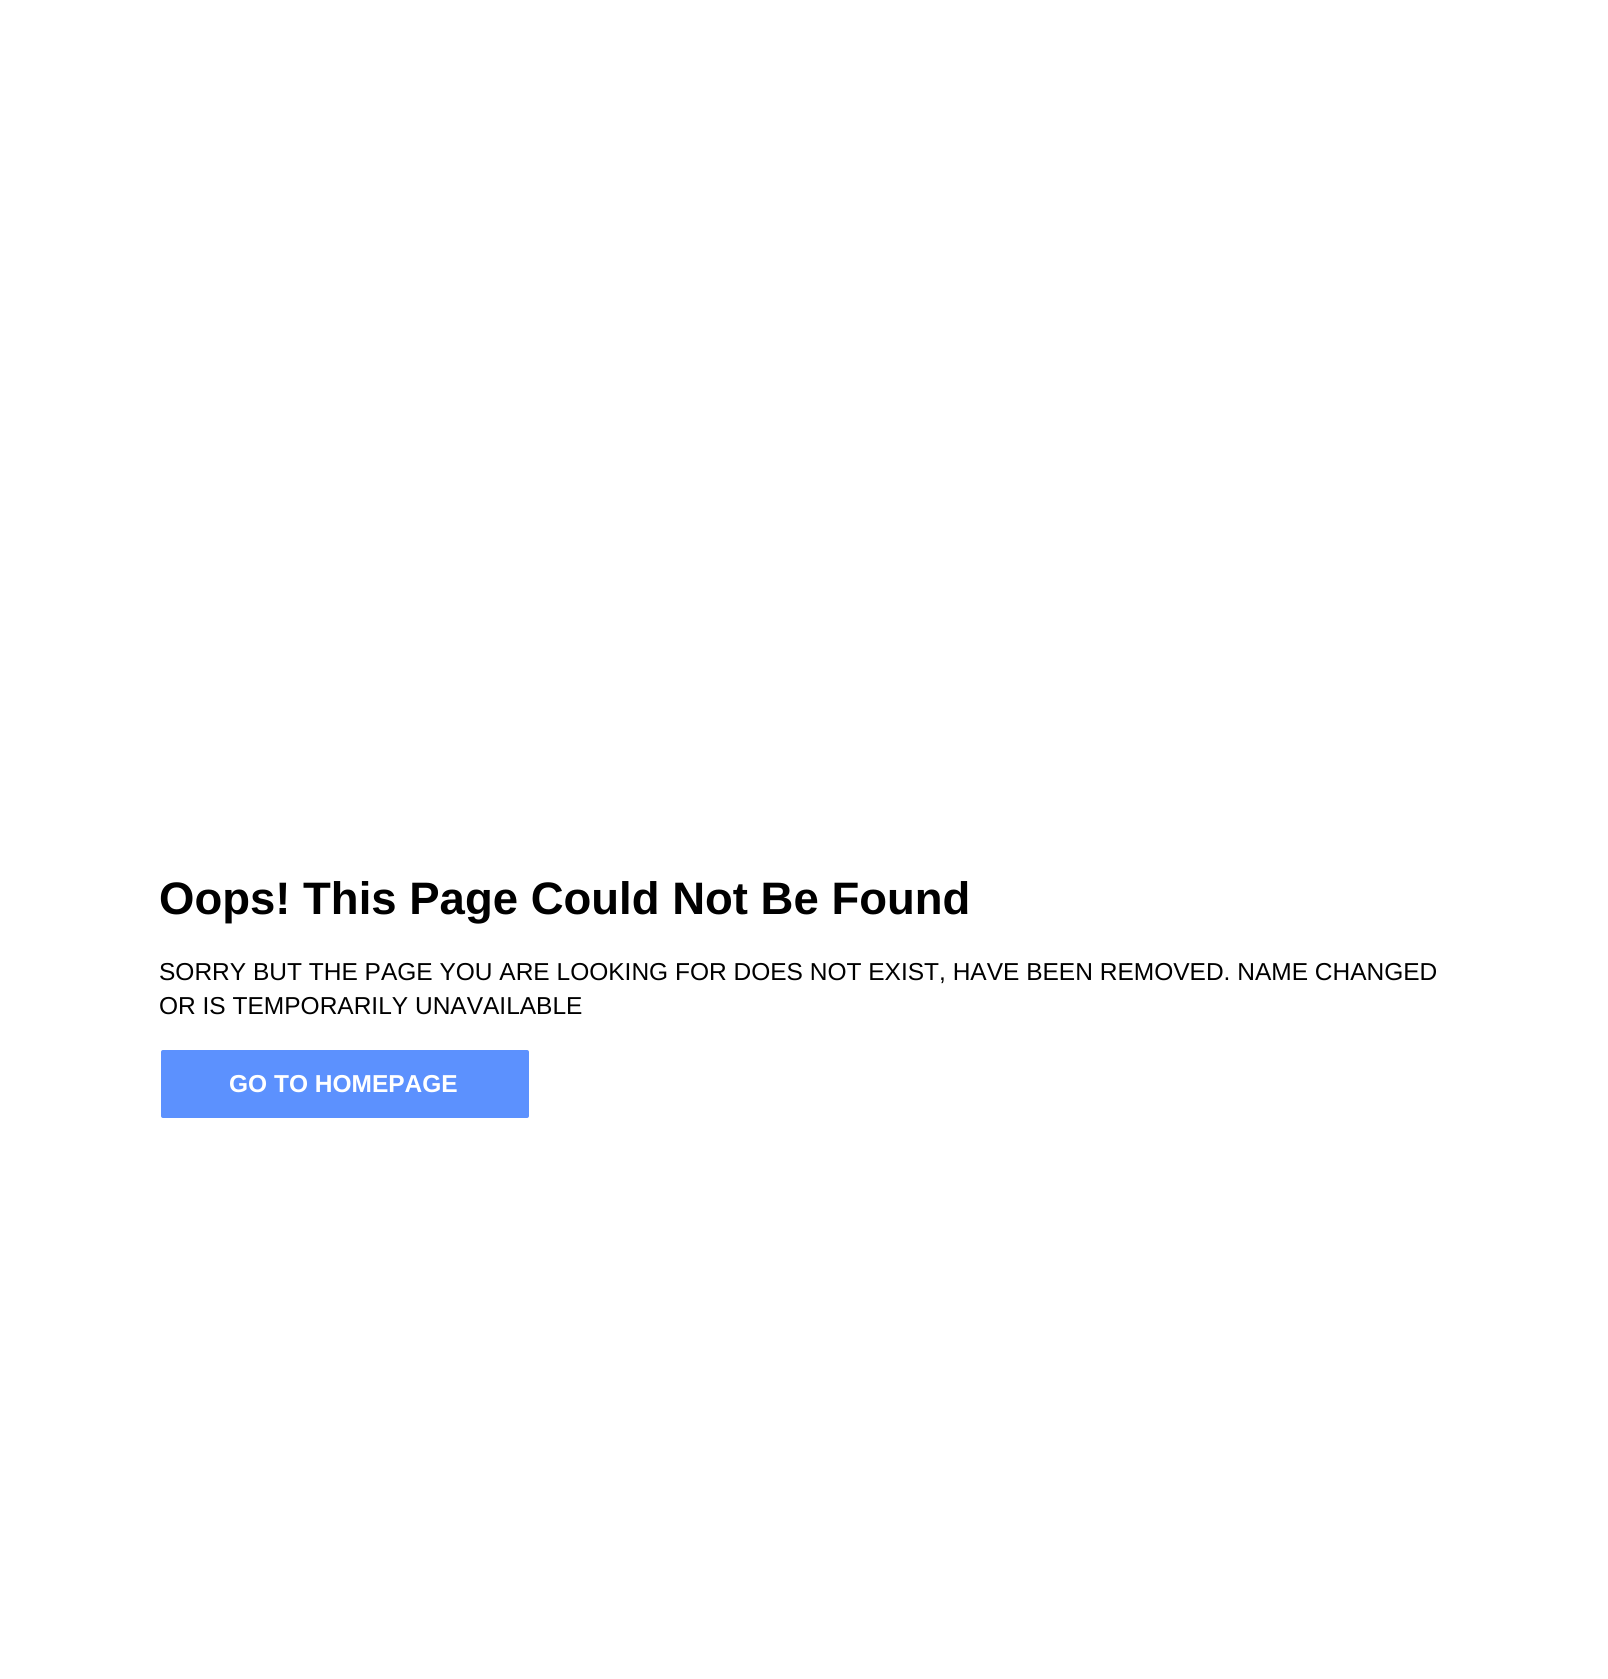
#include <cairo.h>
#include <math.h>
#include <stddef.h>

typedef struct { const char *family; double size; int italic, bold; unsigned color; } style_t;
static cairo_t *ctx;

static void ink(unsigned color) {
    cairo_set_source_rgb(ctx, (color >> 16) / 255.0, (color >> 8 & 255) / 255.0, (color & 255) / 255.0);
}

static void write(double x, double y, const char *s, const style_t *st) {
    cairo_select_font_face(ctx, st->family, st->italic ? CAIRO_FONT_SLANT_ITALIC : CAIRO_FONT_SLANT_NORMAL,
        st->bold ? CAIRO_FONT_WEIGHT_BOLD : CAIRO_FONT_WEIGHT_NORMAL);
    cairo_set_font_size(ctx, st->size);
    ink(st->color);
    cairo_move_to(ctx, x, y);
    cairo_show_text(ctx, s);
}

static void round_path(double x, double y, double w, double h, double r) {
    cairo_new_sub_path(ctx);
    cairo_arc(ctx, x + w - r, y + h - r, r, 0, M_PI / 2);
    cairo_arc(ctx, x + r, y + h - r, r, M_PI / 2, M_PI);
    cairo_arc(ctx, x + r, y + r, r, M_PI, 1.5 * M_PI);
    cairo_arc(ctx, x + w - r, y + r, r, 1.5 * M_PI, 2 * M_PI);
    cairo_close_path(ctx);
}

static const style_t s1 = {"Liberation Sans", 45.5, 0, 1, 0x000000};
static const style_t s2 = {"Liberation Sans", 24.5, 0, 0, 0x000000};
static const style_t s3 = {"Liberation Sans", 24.5, 0, 1, 0xffffff};

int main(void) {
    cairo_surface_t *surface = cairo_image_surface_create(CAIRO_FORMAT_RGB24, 1608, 1679);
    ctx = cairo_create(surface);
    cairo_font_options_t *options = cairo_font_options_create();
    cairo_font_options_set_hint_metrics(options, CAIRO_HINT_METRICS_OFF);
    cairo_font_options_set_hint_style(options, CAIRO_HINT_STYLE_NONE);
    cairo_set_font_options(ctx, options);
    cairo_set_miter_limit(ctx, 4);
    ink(0xffffff);
    cairo_paint(ctx);
    write(159, 914, "Oops! This Page Could Not Be Found", &s1);
    write(159, 980, "SORRY BUT THE PAGE YOU ARE LOOKING FOR DOES NOT EXIST, HAVE BEEN REMOVED. NAME CHANGED", &s2);
    write(159, 1014, "OR IS TEMPORARILY UNAVAILABLE", &s2);
    ink(0x5c91fe);
    round_path(161, 1050, 368, 68, 2);
    cairo_fill(ctx);
    write(229, 1092, "GO TO HOMEPAGE", &s3);
    cairo_surface_write_to_png(surface, "screenshot.png");
    cairo_font_options_destroy(options);
    cairo_destroy(ctx);
    cairo_surface_destroy(surface);
    return 0;
}
